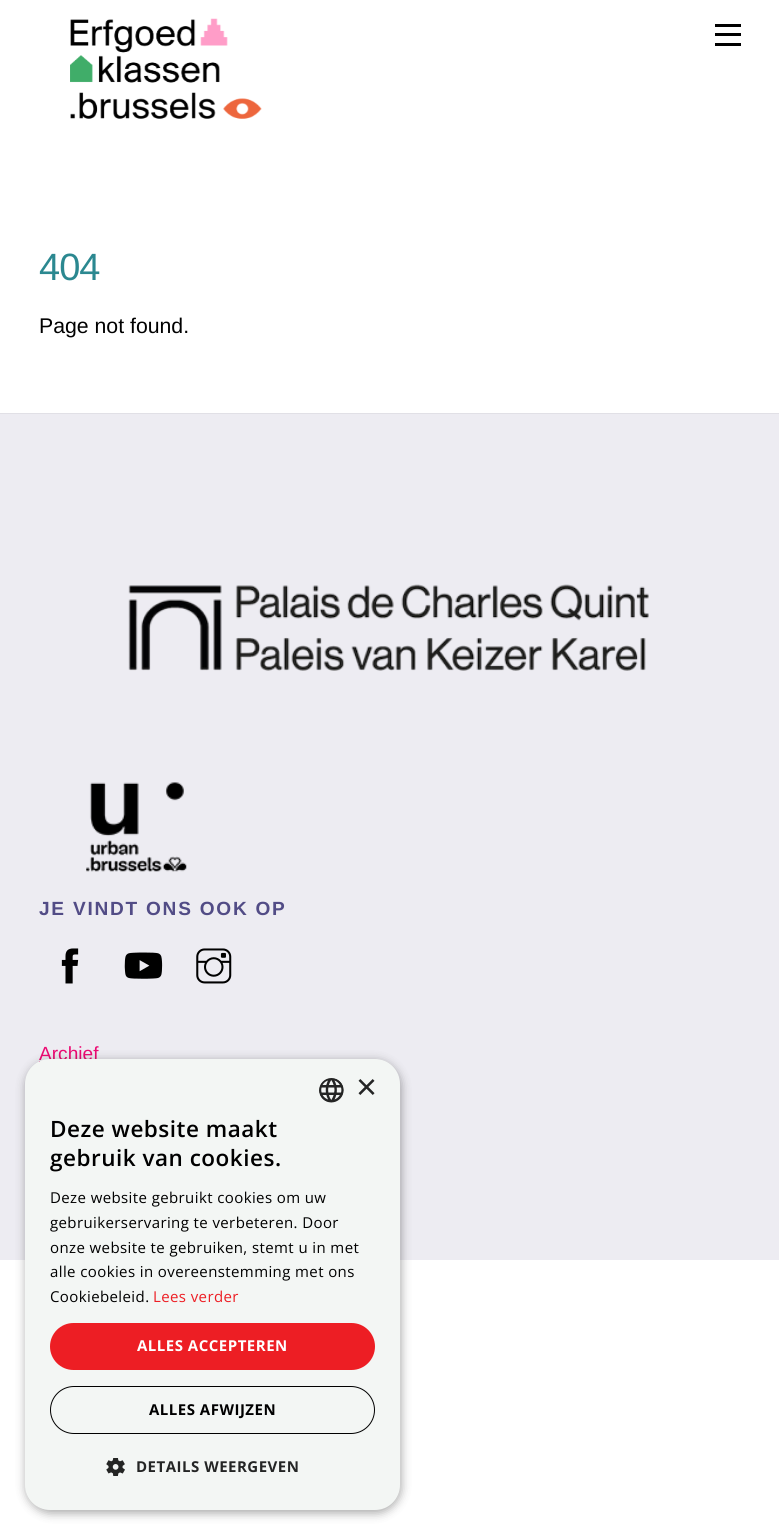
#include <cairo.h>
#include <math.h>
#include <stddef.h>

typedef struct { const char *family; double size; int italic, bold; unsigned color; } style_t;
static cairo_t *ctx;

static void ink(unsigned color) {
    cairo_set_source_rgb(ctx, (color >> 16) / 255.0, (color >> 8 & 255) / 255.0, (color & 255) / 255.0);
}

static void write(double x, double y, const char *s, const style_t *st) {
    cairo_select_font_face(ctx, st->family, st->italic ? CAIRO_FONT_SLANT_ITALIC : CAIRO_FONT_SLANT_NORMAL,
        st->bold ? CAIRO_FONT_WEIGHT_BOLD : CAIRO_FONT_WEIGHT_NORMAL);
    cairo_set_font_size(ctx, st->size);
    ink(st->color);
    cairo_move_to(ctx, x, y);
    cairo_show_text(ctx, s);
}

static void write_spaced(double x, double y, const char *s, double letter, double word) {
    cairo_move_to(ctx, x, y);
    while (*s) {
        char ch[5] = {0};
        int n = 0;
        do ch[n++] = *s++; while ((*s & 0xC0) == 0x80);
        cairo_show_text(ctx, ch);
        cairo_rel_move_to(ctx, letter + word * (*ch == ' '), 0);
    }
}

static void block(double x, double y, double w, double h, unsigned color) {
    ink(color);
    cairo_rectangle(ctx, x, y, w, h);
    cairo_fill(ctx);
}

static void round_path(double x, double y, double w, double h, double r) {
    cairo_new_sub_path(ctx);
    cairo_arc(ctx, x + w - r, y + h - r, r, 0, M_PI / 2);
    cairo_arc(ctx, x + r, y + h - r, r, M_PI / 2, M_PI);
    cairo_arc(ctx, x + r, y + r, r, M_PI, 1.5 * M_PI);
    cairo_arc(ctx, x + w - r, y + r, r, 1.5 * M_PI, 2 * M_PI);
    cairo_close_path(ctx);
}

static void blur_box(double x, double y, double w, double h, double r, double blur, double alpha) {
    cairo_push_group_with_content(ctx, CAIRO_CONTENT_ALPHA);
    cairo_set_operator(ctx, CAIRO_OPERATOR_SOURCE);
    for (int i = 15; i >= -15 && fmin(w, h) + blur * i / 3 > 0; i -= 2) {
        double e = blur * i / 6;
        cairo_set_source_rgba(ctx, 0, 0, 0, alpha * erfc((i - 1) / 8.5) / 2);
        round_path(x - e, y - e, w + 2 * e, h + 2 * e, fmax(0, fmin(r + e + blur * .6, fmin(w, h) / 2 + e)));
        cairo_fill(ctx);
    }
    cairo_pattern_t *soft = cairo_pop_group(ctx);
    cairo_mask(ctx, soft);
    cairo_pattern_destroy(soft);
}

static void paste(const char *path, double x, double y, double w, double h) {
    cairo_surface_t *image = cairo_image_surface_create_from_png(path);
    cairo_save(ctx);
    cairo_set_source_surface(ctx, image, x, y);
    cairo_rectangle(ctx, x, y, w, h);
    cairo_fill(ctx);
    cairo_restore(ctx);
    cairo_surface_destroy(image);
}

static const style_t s1 = {"Liberation Sans", 21.25, 0, 0, 0x000000};
static const style_t s2 = {"Liberation Sans", 19.1, 0, 0, 0xec0972};
static const style_t s3 = {"Liberation Sans", 36, 0, 0, 0x242525};

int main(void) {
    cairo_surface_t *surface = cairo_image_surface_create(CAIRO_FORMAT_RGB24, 779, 1534);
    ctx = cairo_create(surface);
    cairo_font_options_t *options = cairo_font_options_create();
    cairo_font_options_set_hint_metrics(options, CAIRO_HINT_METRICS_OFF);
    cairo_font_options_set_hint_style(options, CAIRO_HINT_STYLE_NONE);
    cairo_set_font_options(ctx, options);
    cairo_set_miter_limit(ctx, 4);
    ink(0xffffff);
    cairo_paint(ctx);
    paste("pic1.png", 70, 18, 192, 101);
    block(715, 43, 26, 3, 0x000000);
    block(715, 24, 26, 3, 0x000000);
    block(715, 33, 26, 3, 0x000000);
    cairo_select_font_face(ctx, "Liberation Sans", CAIRO_FONT_SLANT_NORMAL, CAIRO_FONT_WEIGHT_NORMAL);
    cairo_set_font_size(ctx, 38);
    ink(0x2b8890);
    write_spaced(39, 280, "404", -1, 0);
    write(39, 333, "Page not found.", &s1);
    block(0, 414, 779, 846, 0xedecf2);
    block(0, 413, 779, 1, 0xe1e0e6);
    paste("pic2.png", 128, 584, 521, 87);
    paste("pic3.png", 86, 782, 101, 90);
    cairo_select_font_face(ctx, "Liberation Sans", CAIRO_FONT_SLANT_NORMAL, CAIRO_FONT_WEIGHT_BOLD);
    cairo_set_font_size(ctx, 19.1);
    ink(0x524c86);
    write_spaced(39, 915, "JE VINDT ONS OOK OP", 1.75, 0);
    paste("pic4.png", 61, 948, 18, 36);
    paste("pic5.png", 124, 952, 39, 27);
    paste("pic6.png", 196, 948, 36, 36);
    write(39, 1060, "Archief", &s2);
    block(39, 1061, 2, 1, 0xec0972);
    ink(0x000000);
    blur_box(26, 1061, 375, 452, 25, 5, 0.35);
    ink(0xf3f6f4);
    round_path(25, 1059, 375, 451, 25);
    cairo_fill(ctx);
    paste("pic7.png", 319, 1078, 25, 25);
    write(356, 1099, "×", &s3);
    cairo_select_font_face(ctx, "Open Sans SemiBold", CAIRO_FONT_SLANT_NORMAL, CAIRO_FONT_WEIGHT_NORMAL);
    cairo_set_font_size(ctx, 22.5);
    ink(0x000000);
    write_spaced(50, 1137, "Deze website maakt", 0.5, 0);
    write_spaced(50, 1166, "gebruik van cookies.", 0.5, 0);
    cairo_select_font_face(ctx, "Open Sans", CAIRO_FONT_SLANT_NORMAL, CAIRO_FONT_WEIGHT_NORMAL);
    cairo_set_font_size(ctx, 15);
    write_spaced(50, 1203, "Deze website gebruikt cookies om uw", 0.4, 0);
    write_spaced(50, 1228, "gebruikerservaring te verbeteren. Door", 0.4, 0);
    write_spaced(50, 1253, "onze website te gebruiken, stemt u in met", 0.4, 0);
    write_spaced(50, 1277, "alle cookies in overeenstemming met ons", 0.4, 0);
    write_spaced(50, 1302, "Cookiebeleid.", 0.4, 0);
    ink(0xed1e24);
    write_spaced(153, 1302, "Lees verder", 0.4, 0);
    round_path(50, 1323, 325, 47, 23.5);
    cairo_fill(ctx);
    cairo_select_font_face(ctx, "Open Sans", CAIRO_FONT_SLANT_NORMAL, CAIRO_FONT_WEIGHT_BOLD);
    ink(0xffffff);
    write_spaced(137, 1351, "ALLES ACCEPTEREN", 0.5, 0);
    round_path(50.5, 1386.5, 324, 47, 23.5);
    ink(0x000000);
    cairo_set_line_width(ctx, 1);
    cairo_stroke(ctx);
    write_spaced(149, 1415, "ALLES AFWIJZEN", 0.5, 0);
    paste("pic8.png", 106, 1458, 19, 18);
    ink(0x242525);
    write_spaced(136, 1472, "DETAILS WEERGEVEN", 0.5, 0);
    cairo_surface_write_to_png(surface, "screenshot.png");
    cairo_font_options_destroy(options);
    cairo_destroy(ctx);
    cairo_surface_destroy(surface);
    return 0;
}
